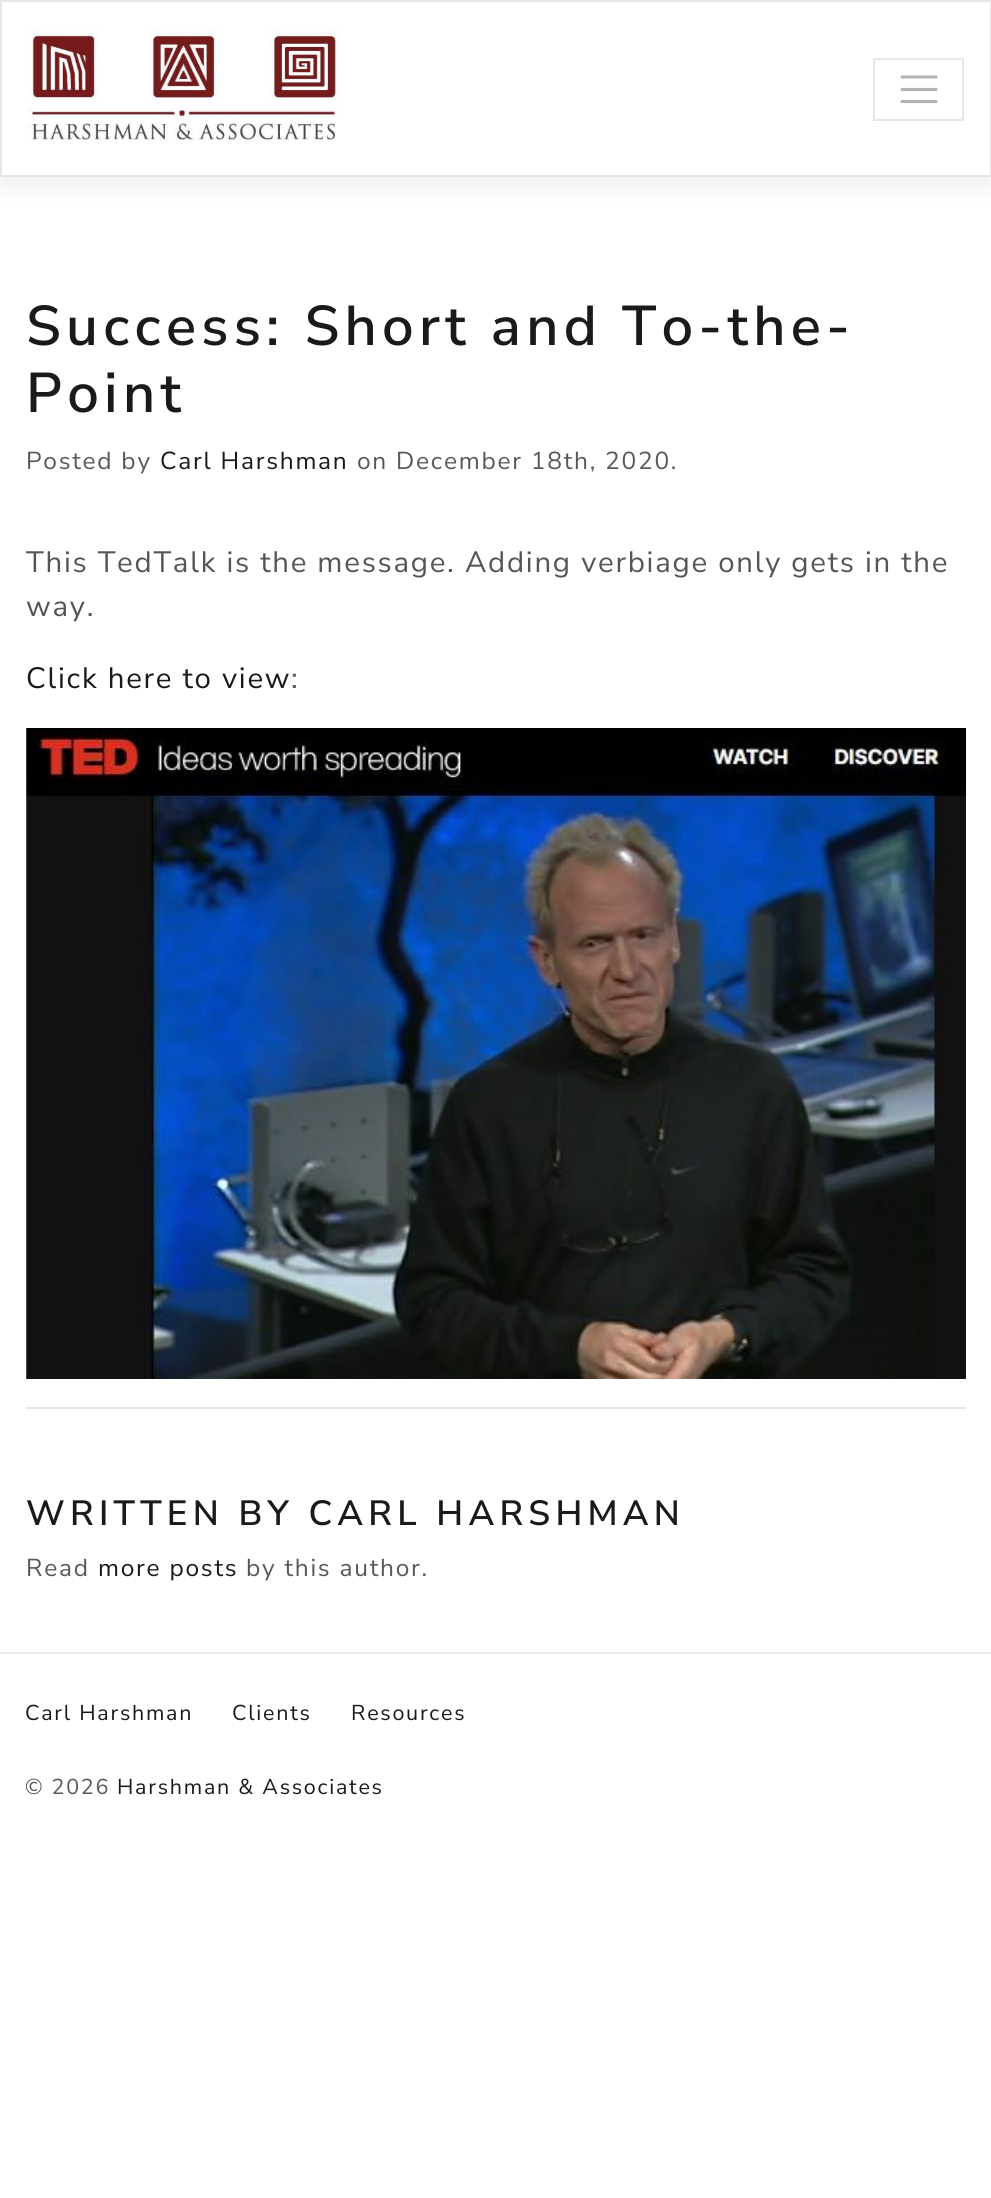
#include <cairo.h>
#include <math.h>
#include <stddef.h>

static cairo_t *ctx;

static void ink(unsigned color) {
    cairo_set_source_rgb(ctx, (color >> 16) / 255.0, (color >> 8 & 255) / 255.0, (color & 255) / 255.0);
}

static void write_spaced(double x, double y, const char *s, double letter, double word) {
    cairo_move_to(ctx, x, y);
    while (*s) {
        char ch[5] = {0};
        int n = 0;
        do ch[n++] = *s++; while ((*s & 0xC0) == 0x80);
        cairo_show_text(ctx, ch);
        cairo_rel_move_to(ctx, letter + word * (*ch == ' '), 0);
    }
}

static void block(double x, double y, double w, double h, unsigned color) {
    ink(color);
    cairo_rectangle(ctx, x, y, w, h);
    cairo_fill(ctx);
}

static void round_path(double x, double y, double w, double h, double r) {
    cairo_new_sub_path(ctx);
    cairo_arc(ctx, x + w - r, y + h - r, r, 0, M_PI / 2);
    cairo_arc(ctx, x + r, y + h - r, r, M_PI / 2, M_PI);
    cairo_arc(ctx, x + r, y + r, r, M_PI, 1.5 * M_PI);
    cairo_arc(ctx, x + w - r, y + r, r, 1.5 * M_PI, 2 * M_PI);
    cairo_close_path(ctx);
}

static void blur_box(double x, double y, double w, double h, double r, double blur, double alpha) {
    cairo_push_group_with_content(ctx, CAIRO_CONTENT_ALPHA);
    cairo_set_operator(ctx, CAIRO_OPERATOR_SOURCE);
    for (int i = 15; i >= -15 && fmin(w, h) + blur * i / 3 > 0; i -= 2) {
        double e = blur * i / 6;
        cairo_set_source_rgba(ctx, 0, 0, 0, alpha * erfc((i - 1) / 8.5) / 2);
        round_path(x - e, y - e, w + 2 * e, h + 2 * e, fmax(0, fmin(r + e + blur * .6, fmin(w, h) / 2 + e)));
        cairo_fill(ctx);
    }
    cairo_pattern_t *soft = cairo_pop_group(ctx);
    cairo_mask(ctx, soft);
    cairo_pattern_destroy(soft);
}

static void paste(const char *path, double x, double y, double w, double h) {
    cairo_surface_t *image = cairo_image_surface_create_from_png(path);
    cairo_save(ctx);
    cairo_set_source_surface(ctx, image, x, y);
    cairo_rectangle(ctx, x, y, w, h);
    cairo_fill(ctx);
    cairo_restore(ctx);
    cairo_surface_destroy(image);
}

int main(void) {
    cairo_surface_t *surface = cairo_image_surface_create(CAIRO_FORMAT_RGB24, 991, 2198);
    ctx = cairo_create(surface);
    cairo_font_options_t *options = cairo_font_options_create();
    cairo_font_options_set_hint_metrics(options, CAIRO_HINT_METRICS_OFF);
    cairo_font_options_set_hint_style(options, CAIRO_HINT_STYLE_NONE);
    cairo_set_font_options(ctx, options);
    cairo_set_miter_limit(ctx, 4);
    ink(0xffffff);
    cairo_paint(ctx);
    ink(0x000000);
    blur_box(0, 9, 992, 177, 0, 13, 0.07);
    ink(0xffffff);
    cairo_rectangle(ctx, 1, 1, 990, 175);
    cairo_fill_preserve(ctx);
    ink(0xe6e6e6);
    cairo_stroke(ctx);
    paste("pic1.png", 28, 28, 313, 112);
    cairo_rectangle(ctx, 874, 59, 89, 61);
    cairo_stroke(ctx);
    cairo_new_path(ctx);
    cairo_move_to(ctx, 902, 77);
    cairo_line_to(ctx, 936, 77);
    cairo_move_to(ctx, 902, 89.5);
    cairo_line_to(ctx, 936, 89.5);
    cairo_move_to(ctx, 902, 101.5);
    cairo_line_to(ctx, 936, 101.5);
    ink(0xb3b3b3);
    cairo_set_line_width(ctx, 3.1);
    cairo_set_line_cap(ctx, CAIRO_LINE_CAP_ROUND);
    cairo_stroke(ctx);
    cairo_select_font_face(ctx, "Nunito Sans SemiBold", CAIRO_FONT_SLANT_NORMAL, CAIRO_FONT_WEIGHT_NORMAL);
    cairo_set_font_size(ctx, 56);
    ink(0x1a1a1a);
    write_spaced(26, 345, "Success: Short and To-the-", 5.25, 0);
    write_spaced(26, 412, "Point", 5.25, 0);
    cairo_select_font_face(ctx, "Nunito Sans", CAIRO_FONT_SLANT_NORMAL, CAIRO_FONT_WEIGHT_NORMAL);
    cairo_set_font_size(ctx, 24.5);
    ink(0x55595c);
    write_spaced(26, 469, "Posted by", 1.75, 0);
    ink(0x1a1a1a);
    write_spaced(160, 469, "Carl Harshman", 1.75, 0);
    ink(0x55595c);
    write_spaced(357, 469, "on December 18th, 2020.", 1.75, 0);
    cairo_set_font_size(ctx, 29.4);
    ink(0x555555);
    write_spaced(26, 572, "This TedTalk is the message. Adding verbiage only gets in the", 1.75, 0);
    write_spaced(26, 616, "way.", 1.75, 0);
    ink(0x1a1a1a);
    write_spaced(26, 688, "Click here to view", 1.75, 0);
    ink(0x555555);
    write_spaced(291, 688, ":", 1.75, 0);
    paste("pic2.png", 26, 728, 940, 651);
    block(26, 1407, 940, 2, 0xe6e6e6);
    cairo_select_font_face(ctx, "Nunito Sans SemiBold", CAIRO_FONT_SLANT_NORMAL, CAIRO_FONT_WEIGHT_NORMAL);
    cairo_set_font_size(ctx, 35);
    ink(0x1a1a1a);
    write_spaced(26, 1525, "WRITTEN BY CARL HARSHMAN", 5.25, 0);
    cairo_select_font_face(ctx, "Nunito Sans", CAIRO_FONT_SLANT_NORMAL, CAIRO_FONT_WEIGHT_NORMAL);
    cairo_set_font_size(ctx, 24.5);
    ink(0x55595c);
    write_spaced(26, 1576, "Read", 1.75, 0);
    ink(0x1a1a1a);
    write_spaced(98, 1576, "more posts", 1.75, 0);
    ink(0x55595c);
    write_spaced(246, 1576, "by this author.", 1.75, 0);
    block(0, 1652, 991, 2, 0xececec);
    cairo_set_font_size(ctx, 21.5);
    ink(0x1a1a1a);
    write_spaced(25, 1720, "Carl Harshman", 1.75, 0);
    write_spaced(232, 1720, "Clients", 1.75, 0);
    write_spaced(351, 1720, "Resources", 1.75, 0);
    ink(0x55595c);
    write_spaced(25, 1794, "© 2026", 1.75, 0);
    ink(0x1a1a1a);
    write_spaced(117, 1794, "Harshman & Associates", 1.75, 0);
    cairo_surface_write_to_png(surface, "screenshot.png");
    cairo_font_options_destroy(options);
    cairo_destroy(ctx);
    cairo_surface_destroy(surface);
    return 0;
}
